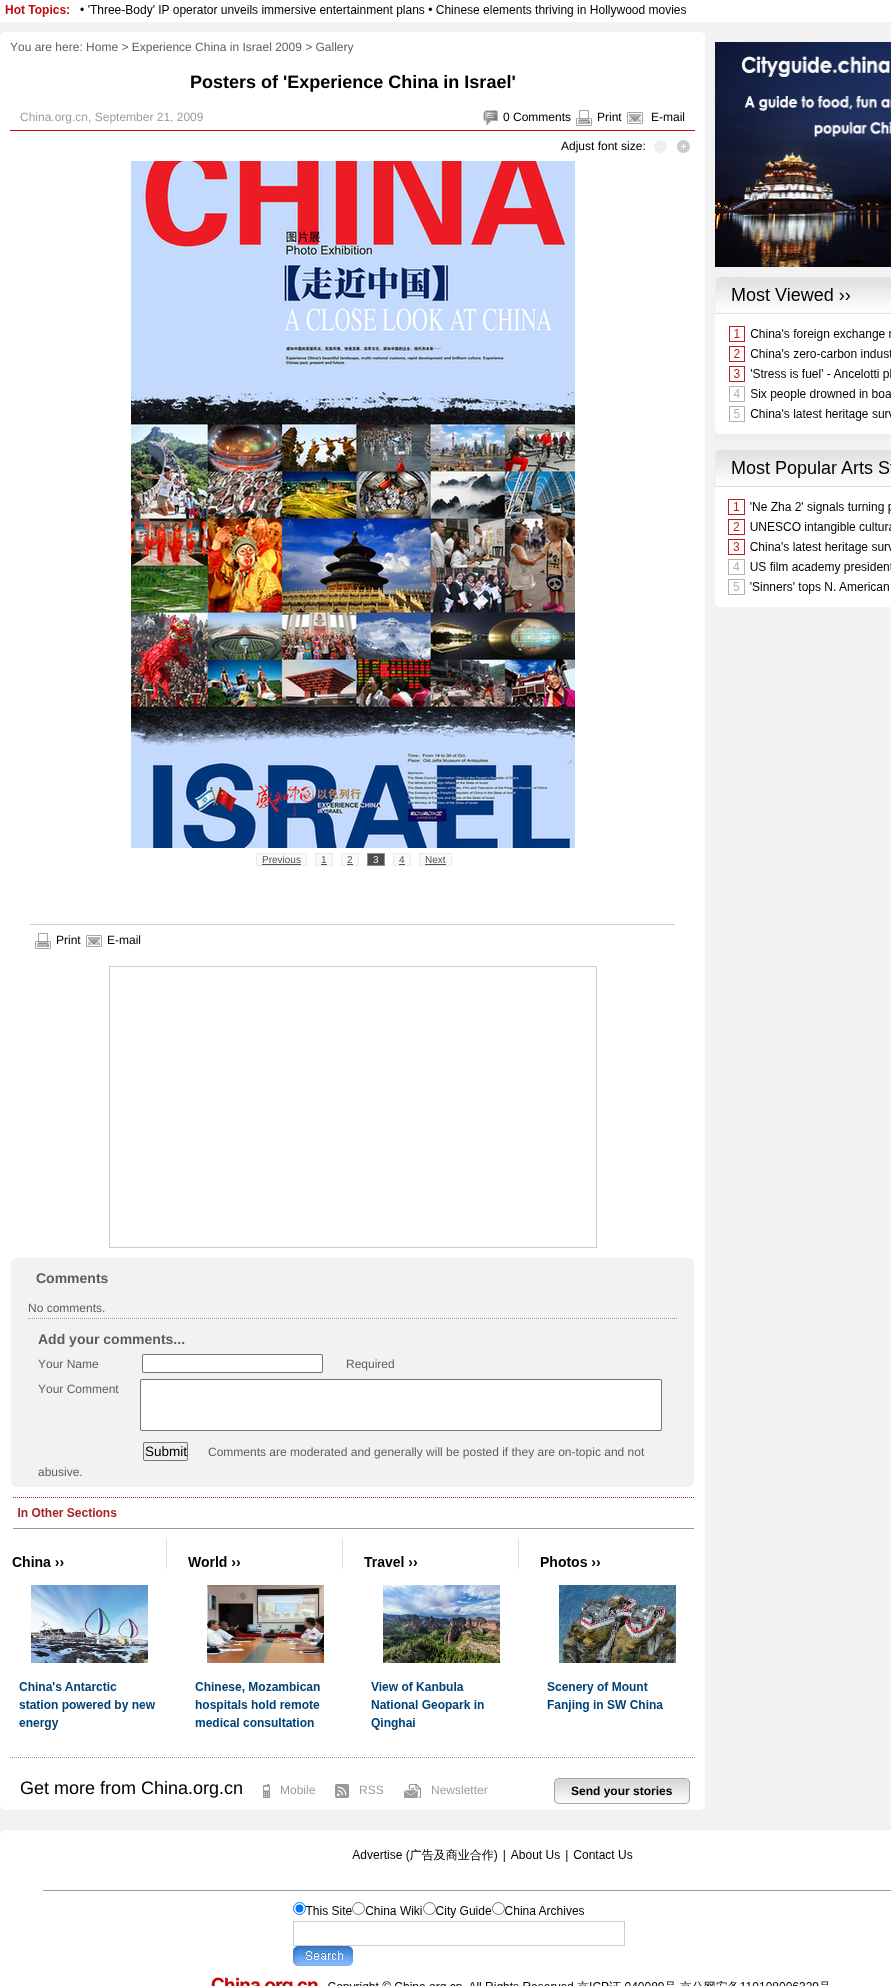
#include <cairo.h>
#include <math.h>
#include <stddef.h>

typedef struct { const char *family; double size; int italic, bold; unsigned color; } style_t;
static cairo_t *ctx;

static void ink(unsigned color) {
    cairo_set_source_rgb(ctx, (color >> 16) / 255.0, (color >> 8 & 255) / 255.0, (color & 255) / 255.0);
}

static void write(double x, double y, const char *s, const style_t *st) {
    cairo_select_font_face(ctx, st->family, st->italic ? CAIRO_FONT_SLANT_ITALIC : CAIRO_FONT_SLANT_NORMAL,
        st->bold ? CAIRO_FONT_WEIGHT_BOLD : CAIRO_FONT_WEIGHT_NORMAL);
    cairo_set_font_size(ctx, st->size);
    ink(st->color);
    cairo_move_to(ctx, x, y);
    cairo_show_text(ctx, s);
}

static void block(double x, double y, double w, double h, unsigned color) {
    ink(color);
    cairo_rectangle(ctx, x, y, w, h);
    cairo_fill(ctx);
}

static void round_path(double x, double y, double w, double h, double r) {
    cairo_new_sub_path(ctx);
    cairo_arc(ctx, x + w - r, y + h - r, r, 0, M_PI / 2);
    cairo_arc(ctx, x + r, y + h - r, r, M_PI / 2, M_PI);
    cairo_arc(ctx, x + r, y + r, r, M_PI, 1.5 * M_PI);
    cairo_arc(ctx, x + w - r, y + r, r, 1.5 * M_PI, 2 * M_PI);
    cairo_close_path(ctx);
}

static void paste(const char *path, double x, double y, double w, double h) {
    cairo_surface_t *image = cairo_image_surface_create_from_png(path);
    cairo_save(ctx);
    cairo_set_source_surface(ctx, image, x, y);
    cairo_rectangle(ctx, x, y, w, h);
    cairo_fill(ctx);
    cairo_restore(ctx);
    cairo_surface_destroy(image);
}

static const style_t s1 = {"Liberation Sans", 12, 0, 0, 0x5b5b5b};
static const style_t s2 = {"Liberation Sans", 18, 0, 1, 0x000000};
static const style_t s3 = {"Liberation Sans", 12, 0, 0, 0x999999};
static const style_t s4 = {"Liberation Sans", 12, 0, 0, 0x000000};
static const style_t s5 = {"Liberation Sans", 10, 0, 0, 0x4e4e4e};
static const style_t s6 = {"Liberation Sans", 10, 0, 0, 0xffffff};
static const style_t s7 = {"Liberation Sans", 14, 0, 1, 0x5b5b5b};
static const style_t s8 = {"Liberation Sans", 13.5, 0, 0, 0x000000};
static const style_t s9 = {"Liberation Sans", 18, 0, 0, 0x000000};
static const style_t s10 = {"Liberation Sans", 12, 0, 1, 0x000000};

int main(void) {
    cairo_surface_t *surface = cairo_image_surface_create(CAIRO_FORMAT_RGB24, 891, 1986);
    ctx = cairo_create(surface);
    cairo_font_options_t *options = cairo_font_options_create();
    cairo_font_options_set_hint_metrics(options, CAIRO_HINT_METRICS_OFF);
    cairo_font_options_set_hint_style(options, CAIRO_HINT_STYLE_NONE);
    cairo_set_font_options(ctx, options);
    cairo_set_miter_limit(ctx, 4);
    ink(0xf2f2f2);
    cairo_paint(ctx);
    paste("pic1.png", 687, 0, 204, 22);
    paste("pic2.png", 0, 0, 687, 22);
    block(0, 35, 705, 1772, 0xffffff);
    paste("pic3.png", 0, 1807, 705, 3);
    paste("pic4.png", 0, 32, 705, 3);
    write(10, 51, "You are here: Home > Experience China in Israel 2009 > Gallery", &s1);
    write(190, 88, "Posters of 'Experience China in Israel'", &s2);
    block(10, 130, 685, 1, 0xc50a0c);
    write(20, 121, "China.org.cn, September 21, 2009", &s3);
    paste("pic5.png", 483, 110, 15, 15);
    write(503, 121, "0 Comments", &s4);
    paste("pic6.png", 576, 110, 16, 16);
    write(597, 121, "Print", &s4);
    paste("pic7.png", 627, 112, 16, 12);
    write(651, 121, "E-mail", &s4);
    write(561, 150, "Adjust font size:", &s4);
    paste("pic8.png", 654, 140, 13, 13);
    paste("pic9.png", 677, 140, 13, 13);
    paste("pic10.png", 131, 161, 444, 687);
    ink(0xf9f9f9);
    cairo_rectangle(ctx, 256.5, 853.5, 50, 12);
    cairo_fill_preserve(ctx);
    ink(0xeaeaea);
    cairo_set_line_width(ctx, 1);
    cairo_stroke(ctx);
    write(262, 863, "Previous", &s5);
    block(262, 864, 39, 1, 0x4e4e4e);
    ink(0xf9f9f9);
    cairo_rectangle(ctx, 315.5, 853.5, 17, 12);
    cairo_fill_preserve(ctx);
    ink(0xeaeaea);
    cairo_stroke(ctx);
    write(321, 863, "1", &s5);
    block(321, 864, 6, 1, 0x4e4e4e);
    ink(0xf9f9f9);
    cairo_rectangle(ctx, 341.5, 853.5, 17, 12);
    cairo_fill_preserve(ctx);
    ink(0xeaeaea);
    cairo_stroke(ctx);
    write(347, 863, "2", &s5);
    block(347, 864, 6, 1, 0x4e4e4e);
    cairo_rectangle(ctx, 367.5, 853.5, 17, 12);
    cairo_fill_preserve(ctx);
    ink(0x8f8f8f);
    cairo_stroke(ctx);
    write(373, 863, "3", &s6);
    ink(0xf9f9f9);
    cairo_rectangle(ctx, 393.5, 853.5, 17, 12);
    cairo_fill_preserve(ctx);
    ink(0xeaeaea);
    cairo_stroke(ctx);
    write(399, 863, "4", &s5);
    block(399, 864, 6, 1, 0x4e4e4e);
    ink(0xf9f9f9);
    cairo_rectangle(ctx, 419.5, 853.5, 32, 12);
    cairo_fill_preserve(ctx);
    ink(0xeaeaea);
    cairo_stroke(ctx);
    write(425, 863, "Next", &s5);
    block(425, 864, 21, 1, 0x4e4e4e);
    block(30, 924, 645, 1, 0xcccccc);
    paste("pic6.png", 35, 933, 16, 16);
    write(56, 944, "Print", &s4);
    paste("pic7.png", 86, 935, 16, 12);
    write(107, 944, "E-mail", &s4);
    cairo_rectangle(ctx, 109.5, 966.5, 487, 281);
    ink(0xcccccc);
    cairo_stroke(ctx);
    block(11, 1261, 683, 223, 0xf2f2f2);
    paste("pic11.png", 11, 1484, 683, 3);
    paste("pic12.png", 11, 1258, 683, 3);
    write(36, 1283, "Comments", &s7);
    write(28, 1312, "No comments.", &s1);
    cairo_new_path(ctx);
    cairo_move_to(ctx, 28, 1318.5);
    cairo_line_to(ctx, 678, 1318.5);
    ink(0x999999);
    cairo_set_dash(ctx, (double[]){1, 1}, 2, 0);
    cairo_stroke(ctx);
    write(38, 1344, "Add your comments...", &s7);
    write(38, 1368, "Your Name", &s1);
    ink(0xffffff);
    round_path(142.5, 1354.5, 180, 18, 1.5);
    cairo_fill_preserve(ctx);
    ink(0x767676);
    cairo_set_dash(ctx, NULL, 0, 0);
    cairo_stroke(ctx);
    write(346, 1368, "Required", &s1);
    write(38, 1393, "Your Comment", &s1);
    ink(0xffffff);
    round_path(140.5, 1379.5, 521, 51, 1.5);
    cairo_fill_preserve(ctx);
    ink(0x767676);
    cairo_stroke(ctx);
    ink(0xefefef);
    round_path(143.5, 1442.5, 44, 18, 1.5);
    cairo_fill_preserve(ctx);
    ink(0x767676);
    cairo_stroke(ctx);
    write(145, 1456, "Submit", &s8);
    write(208, 1456, "Comments are moderated and generally will be posted if they are on-topic and not", &s1);
    write(38, 1476, "abusive.", &s1);
    paste("pic13.png", 12, 1497, 682, 233);
    cairo_new_path(ctx);
    cairo_move_to(ctx, 10, 1757.5);
    cairo_line_to(ctx, 695, 1757.5);
    ink(0x999999);
    cairo_set_dash(ctx, (double[]){1, 1}, 2, 0);
    cairo_stroke(ctx);
    write(20, 1794, "Get more from China.org.cn", &s9);
    paste("pic14.png", 263, 1784, 7, 14);
    write(280, 1794, "Mobile", &s3);
    paste("pic15.png", 335, 1784, 14, 14);
    write(359, 1794, "RSS", &s3);
    paste("pic16.png", 404, 1784, 17, 14);
    write(431, 1794, "Newsletter", &s3);
    paste("pic17.png", 554, 1778, 136, 26);
    write(571, 1795, "Send your stories", &s10);
    paste("pic18.png", 715, 42, 176, 565);
    paste("pic19.png", 0, 1830, 891, 156);
    cairo_surface_write_to_png(surface, "screenshot.png");
    cairo_font_options_destroy(options);
    cairo_destroy(ctx);
    cairo_surface_destroy(surface);
    return 0;
}
